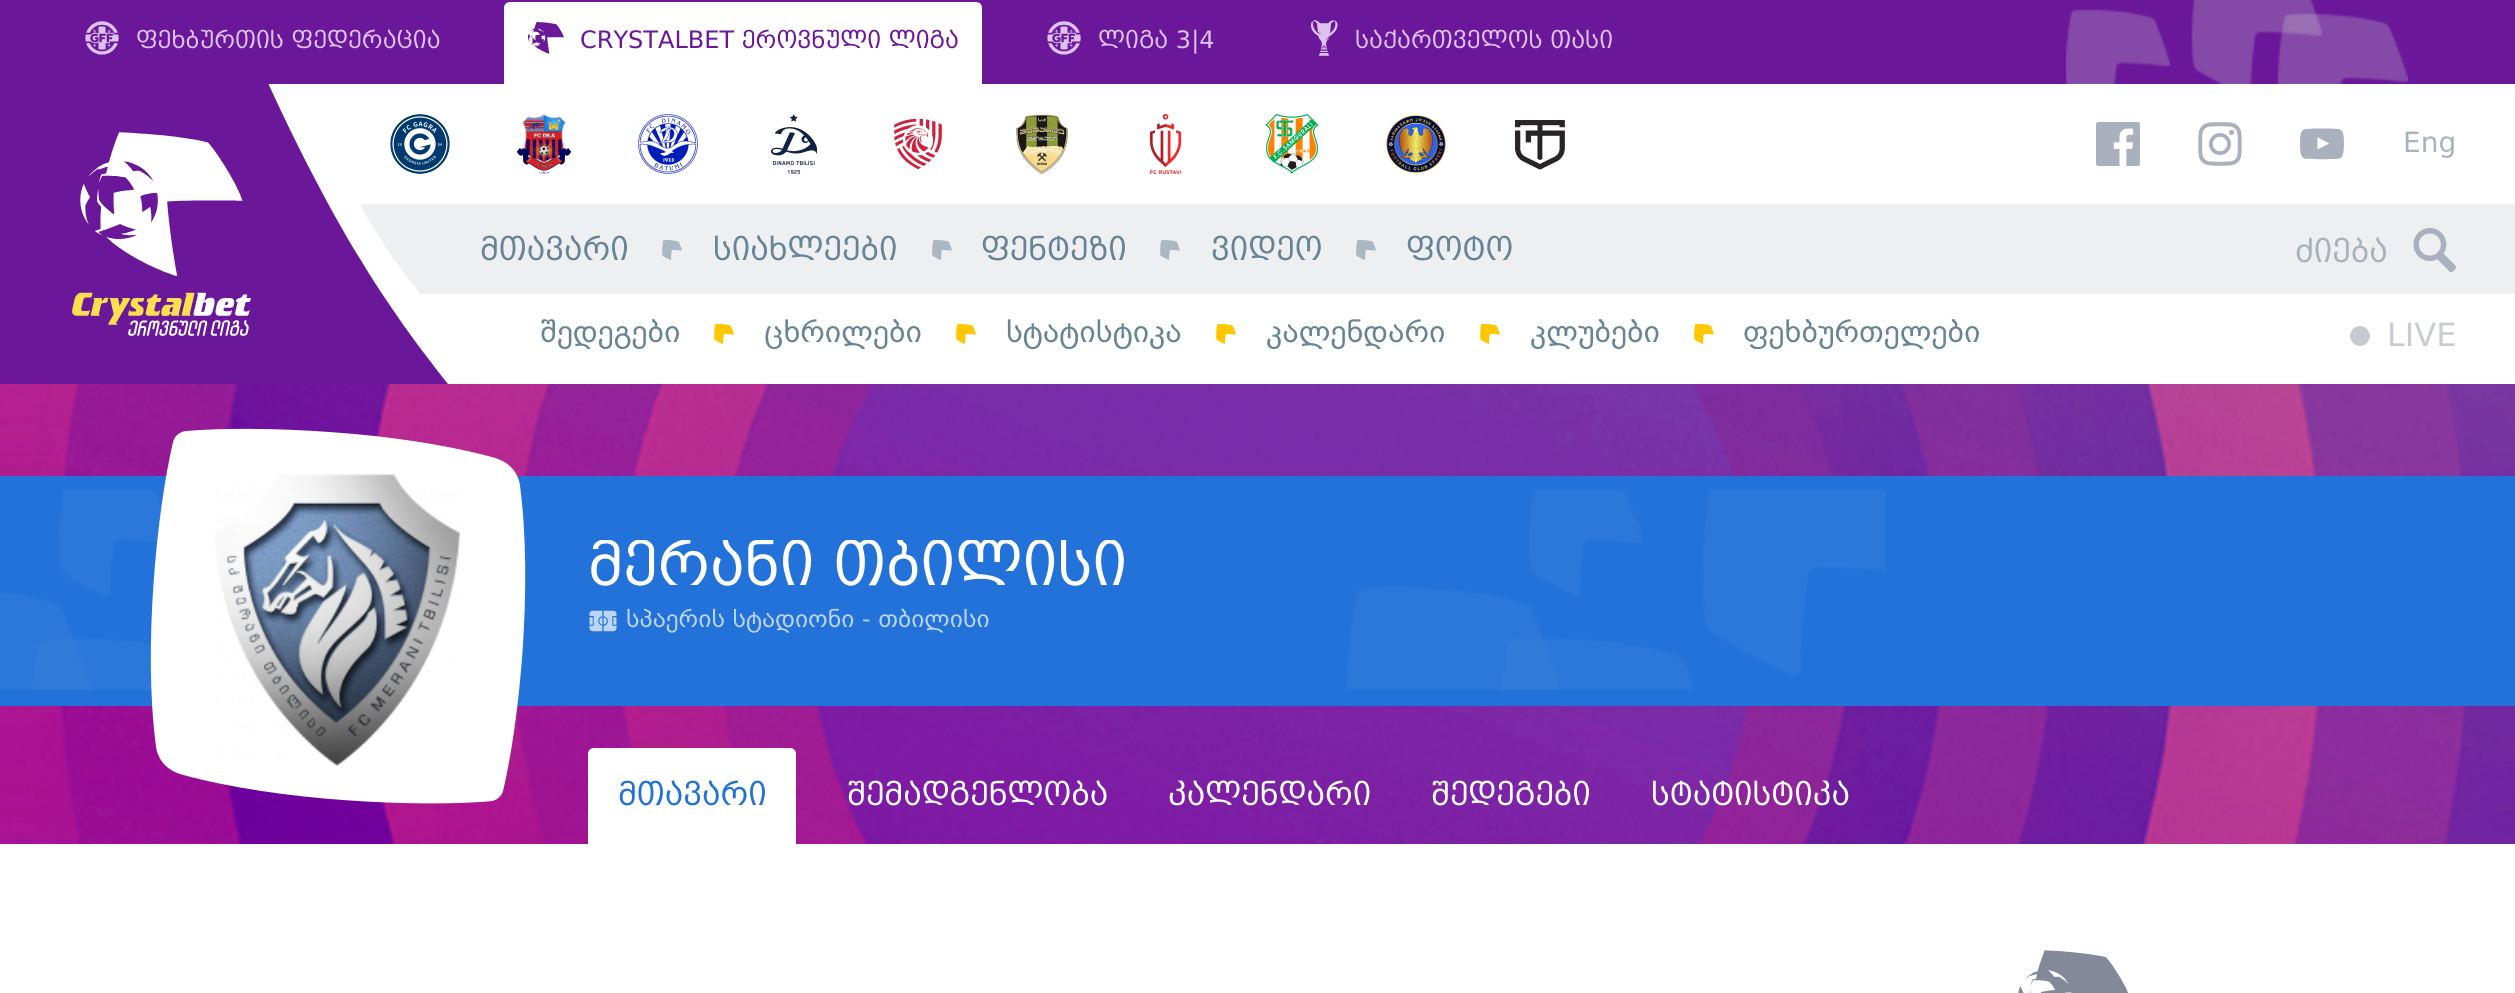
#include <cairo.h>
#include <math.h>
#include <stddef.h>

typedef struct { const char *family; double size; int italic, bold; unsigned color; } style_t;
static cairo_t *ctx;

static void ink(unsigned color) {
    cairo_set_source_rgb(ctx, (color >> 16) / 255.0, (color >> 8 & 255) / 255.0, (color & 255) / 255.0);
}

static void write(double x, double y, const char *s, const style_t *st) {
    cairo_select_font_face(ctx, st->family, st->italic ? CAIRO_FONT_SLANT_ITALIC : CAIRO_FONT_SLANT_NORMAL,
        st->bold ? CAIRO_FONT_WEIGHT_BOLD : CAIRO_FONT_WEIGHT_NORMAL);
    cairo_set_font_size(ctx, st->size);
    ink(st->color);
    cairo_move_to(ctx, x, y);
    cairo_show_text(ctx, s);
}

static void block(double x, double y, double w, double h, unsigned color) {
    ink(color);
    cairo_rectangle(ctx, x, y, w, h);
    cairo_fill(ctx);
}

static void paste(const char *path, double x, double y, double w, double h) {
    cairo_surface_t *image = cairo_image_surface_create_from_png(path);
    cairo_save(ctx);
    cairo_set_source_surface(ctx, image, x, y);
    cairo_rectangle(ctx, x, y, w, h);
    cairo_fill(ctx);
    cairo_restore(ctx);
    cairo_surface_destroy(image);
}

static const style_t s1 = {"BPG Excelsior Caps", 24, 0, 0, 0xddc2ed};
static const style_t s2 = {"BPG Excelsior Caps", 24, 0, 0, 0x6a179a};
static const style_t s3 = {"BPG Excelsior Caps", 28, 0, 0, 0xa9b1be};
static const style_t s4 = {"BPG Excelsior Caps", 32, 0, 0, 0x668495};
static const style_t s5 = {"BPG Excelsior Caps", 32, 0, 0, 0xa9b1be};
static const style_t s6 = {"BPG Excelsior", 30, 0, 0, 0x668495};
static const style_t s7 = {"BPG Excelsior", 32, 0, 0, 0xc9cbd2};
static const style_t s8 = {"BPG Excelsior Caps", 60, 0, 0, 0xffffff};
static const style_t s9 = {"BPG Excelsior", 24, 0, 0, 0xbdd5f4};
static const style_t s10 = {"BPG Excelsior Caps", 32, 0, 0, 0x2372d9};
static const style_t s11 = {"BPG Excelsior Caps", 32, 0, 0, 0xffffff};

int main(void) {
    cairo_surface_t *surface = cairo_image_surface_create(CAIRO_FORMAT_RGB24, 2515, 993);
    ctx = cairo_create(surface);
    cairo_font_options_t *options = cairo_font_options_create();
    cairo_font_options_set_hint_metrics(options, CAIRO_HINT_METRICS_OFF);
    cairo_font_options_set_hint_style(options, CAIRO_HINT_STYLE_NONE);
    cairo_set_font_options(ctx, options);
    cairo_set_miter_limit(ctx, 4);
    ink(0xffffff);
    cairo_paint(ctx);
    block(0, 0, 2515, 84, 0x6a179a);
    paste("pic1.png", 2066, 0, 342, 84);
    paste("pic2.png", 85, 21, 34, 34);
    write(136, 48, "ფეხბურთის ფედერაცია", &s1);
    ink(0xffffff);
    cairo_new_path(ctx);
    cairo_move_to(ctx, 510, 2);
    cairo_line_to(ctx, 976, 2);
    cairo_curve_to(ctx, 979.5, 2, 982, 4.5, 982, 8);
    cairo_line_to(ctx, 982, 84);
    cairo_line_to(ctx, 504, 84);
    cairo_line_to(ctx, 504, 8);
    cairo_curve_to(ctx, 504, 4.5, 506.5, 2, 510, 2);
    cairo_close_path(ctx);
    cairo_fill(ctx);
    paste("pic3.png", 528, 22, 36, 32);
    write(580, 48, "CRYSTALBET ეროვნული ლიგა", &s2);
    paste("pic2.png", 1047, 21, 34, 34);
    write(1098, 48, "ლიგა 3|4", &s1);
    paste("pic4.png", 1311, 20, 27, 36);
    write(1355, 48, "საქართველოს თასი", &s1);
    block(360, 204, 2155, 90, 0xeeeff1);
    ink(0xffffff);
    cairo_new_path(ctx);
    cairo_move_to(ctx, 360, 294);
    cairo_line_to(ctx, 420, 294);
    cairo_curve_to(ctx, 375, 236, 360, 204, 360, 204);
    cairo_close_path(ctx);
    cairo_fill(ctx);
    paste("pic5.png", 0, 84, 448, 300);
    paste("pic6.png", 390, 114, 60, 60);
    paste("pic7.png", 517, 114, 54, 60);
    paste("pic8.png", 638, 114, 60, 60);
    paste("pic9.png", 771, 114, 47, 60);
    paste("pic10.png", 894, 118, 48, 52);
    paste("pic11.png", 1016, 114, 52, 60);
    paste("pic12.png", 1149, 114, 33, 60);
    paste("pic13.png", 1265, 114, 54, 60);
    paste("pic14.png", 1386, 115, 60, 58);
    paste("pic15.png", 1515, 120, 50, 50);
    paste("pic16.png", 2096, 122, 44, 44);
    paste("pic17.png", 2198, 122, 44, 44);
    paste("pic18.png", 2300, 128, 44, 32);
    write(2403, 152, "Eng", &s3);
    paste("pic19.png", 662, 240, 20, 20);
    write(480, 260, "მთავარი", &s4);
    paste("pic19.png", 932, 240, 20, 20);
    write(713, 260, "სიახლეები", &s4);
    paste("pic19.png", 1160, 240, 20, 20);
    write(981, 260, "ფენტეზი", &s4);
    paste("pic19.png", 1356, 240, 20, 20);
    write(1211, 260, "ვიდეო", &s4);
    write(1406, 260, "ფოტო", &s4);
    write(2295, 262, "ძიება", &s5);
    paste("pic20.png", 2413, 228, 43, 44);
    paste("pic21.png", 714, 324, 20, 20);
    write(540, 342, "შედეგები", &s6);
    paste("pic21.png", 956, 324, 20, 20);
    write(764, 342, "ცხრილები", &s6);
    paste("pic21.png", 1216, 324, 20, 20);
    write(1006, 342, "სტატისტიკა", &s6);
    paste("pic21.png", 1480, 324, 20, 20);
    write(1266, 342, "კალენდარი", &s6);
    paste("pic21.png", 1694, 324, 20, 20);
    write(1530, 342, "კლუბები", &s6);
    write(1743, 342, "ფეხბურთელები", &s6);
    ink(0xc9cbd2);
    cairo_new_path(ctx);
    cairo_arc(ctx, 2360, 336, 10, 0, 2 * M_PI);
    cairo_fill(ctx);
    write(2387, 346, "LIVE", &s7);
    paste("pic22.png", 0, 384, 2515, 460);
    block(0, 476, 2515, 230, 0x2372d9);
    paste("pic23.png", 0, 490, 1886, 200);
    paste("pic24.png", 150, 428, 376, 376);
    paste("pic25.png", 215, 474, 245, 292);
    cairo_save(ctx);
    cairo_rectangle(ctx, 588, 540, 1780, 60);
    cairo_clip(ctx);
    write(588, 585, "მერანი თბილისი", &s8);
    cairo_restore(ctx);
    paste("pic26.png", 589, 610, 28, 22);
    write(626, 627, "სპაერის სტადიონი - თბილისი", &s9);
    ink(0xffffff);
    cairo_new_path(ctx);
    cairo_move_to(ctx, 594, 748);
    cairo_line_to(ctx, 790, 748);
    cairo_curve_to(ctx, 793.5, 748, 796, 750.5, 796, 754);
    cairo_line_to(ctx, 796, 844);
    cairo_line_to(ctx, 588, 844);
    cairo_line_to(ctx, 588, 754);
    cairo_curve_to(ctx, 588, 750.5, 590.5, 748, 594, 748);
    cairo_close_path(ctx);
    cairo_fill(ctx);
    write(618, 805, "მთავარი", &s10);
    write(847, 805, "შემადგენლობა", &s11);
    write(1168, 805, "კალენდარი", &s11);
    write(1431, 805, "შედეგები", &s11);
    write(1651, 805, "სტატისტიკა", &s11);
    paste("pic27.png", 2018, 950, 110, 43);
    cairo_surface_write_to_png(surface, "screenshot.png");
    cairo_font_options_destroy(options);
    cairo_destroy(ctx);
    cairo_surface_destroy(surface);
    return 0;
}
